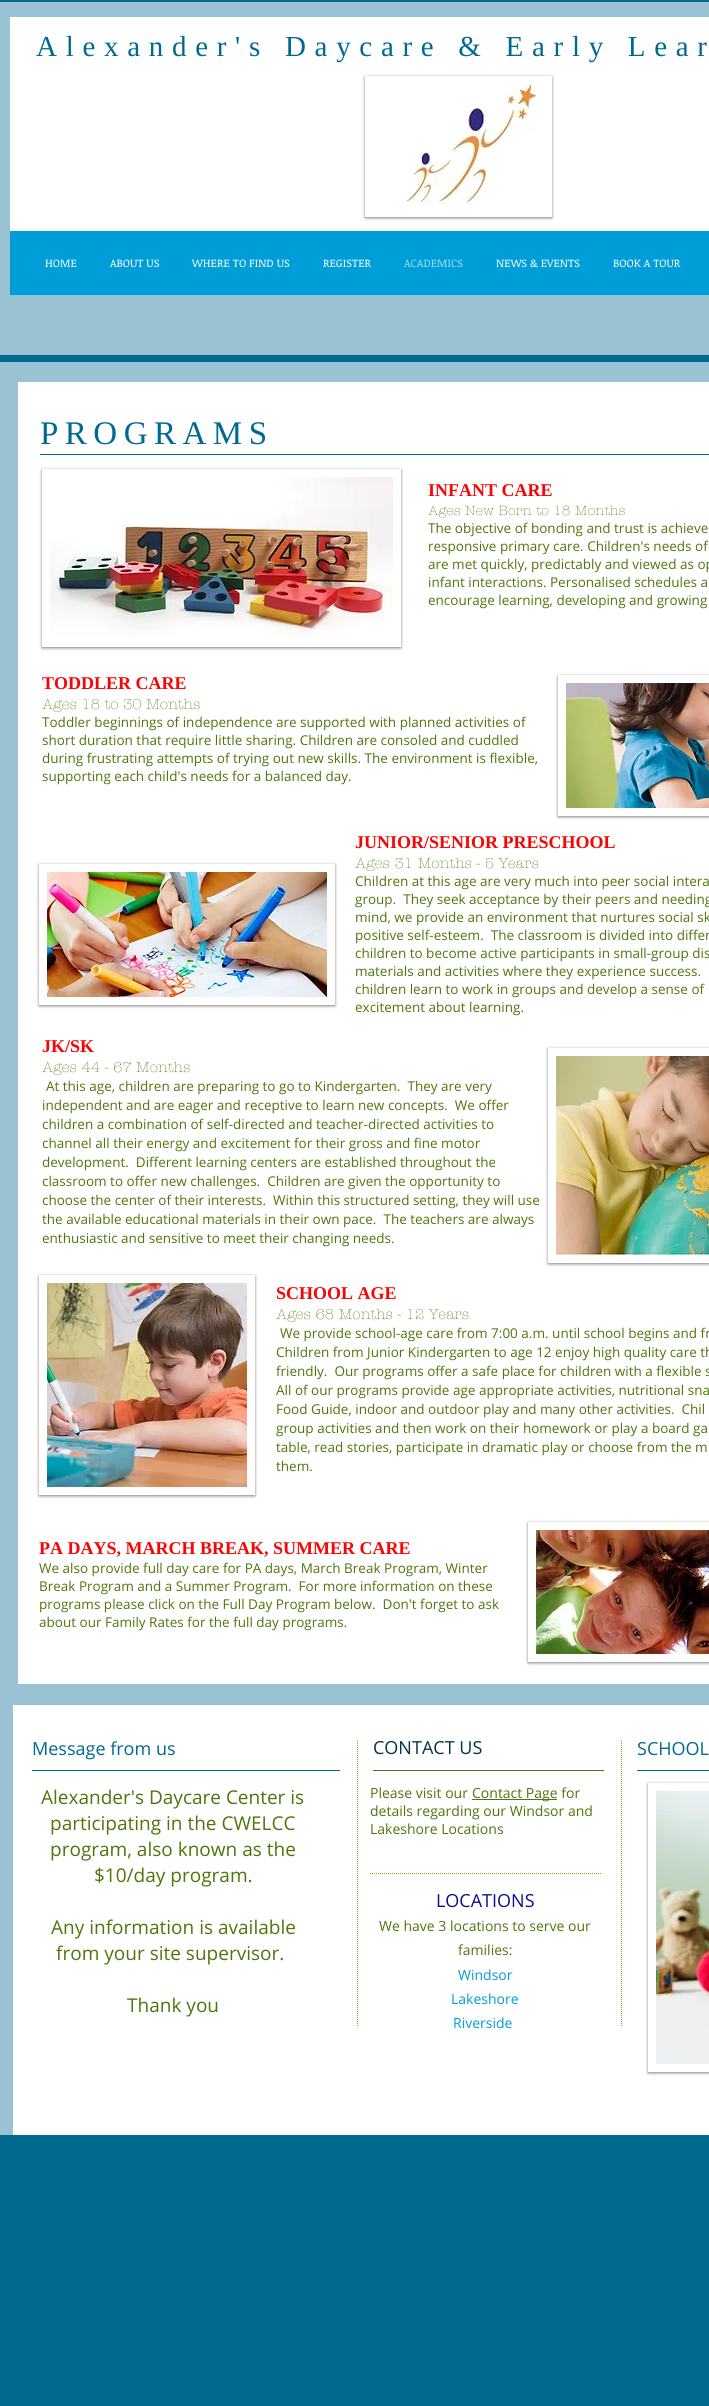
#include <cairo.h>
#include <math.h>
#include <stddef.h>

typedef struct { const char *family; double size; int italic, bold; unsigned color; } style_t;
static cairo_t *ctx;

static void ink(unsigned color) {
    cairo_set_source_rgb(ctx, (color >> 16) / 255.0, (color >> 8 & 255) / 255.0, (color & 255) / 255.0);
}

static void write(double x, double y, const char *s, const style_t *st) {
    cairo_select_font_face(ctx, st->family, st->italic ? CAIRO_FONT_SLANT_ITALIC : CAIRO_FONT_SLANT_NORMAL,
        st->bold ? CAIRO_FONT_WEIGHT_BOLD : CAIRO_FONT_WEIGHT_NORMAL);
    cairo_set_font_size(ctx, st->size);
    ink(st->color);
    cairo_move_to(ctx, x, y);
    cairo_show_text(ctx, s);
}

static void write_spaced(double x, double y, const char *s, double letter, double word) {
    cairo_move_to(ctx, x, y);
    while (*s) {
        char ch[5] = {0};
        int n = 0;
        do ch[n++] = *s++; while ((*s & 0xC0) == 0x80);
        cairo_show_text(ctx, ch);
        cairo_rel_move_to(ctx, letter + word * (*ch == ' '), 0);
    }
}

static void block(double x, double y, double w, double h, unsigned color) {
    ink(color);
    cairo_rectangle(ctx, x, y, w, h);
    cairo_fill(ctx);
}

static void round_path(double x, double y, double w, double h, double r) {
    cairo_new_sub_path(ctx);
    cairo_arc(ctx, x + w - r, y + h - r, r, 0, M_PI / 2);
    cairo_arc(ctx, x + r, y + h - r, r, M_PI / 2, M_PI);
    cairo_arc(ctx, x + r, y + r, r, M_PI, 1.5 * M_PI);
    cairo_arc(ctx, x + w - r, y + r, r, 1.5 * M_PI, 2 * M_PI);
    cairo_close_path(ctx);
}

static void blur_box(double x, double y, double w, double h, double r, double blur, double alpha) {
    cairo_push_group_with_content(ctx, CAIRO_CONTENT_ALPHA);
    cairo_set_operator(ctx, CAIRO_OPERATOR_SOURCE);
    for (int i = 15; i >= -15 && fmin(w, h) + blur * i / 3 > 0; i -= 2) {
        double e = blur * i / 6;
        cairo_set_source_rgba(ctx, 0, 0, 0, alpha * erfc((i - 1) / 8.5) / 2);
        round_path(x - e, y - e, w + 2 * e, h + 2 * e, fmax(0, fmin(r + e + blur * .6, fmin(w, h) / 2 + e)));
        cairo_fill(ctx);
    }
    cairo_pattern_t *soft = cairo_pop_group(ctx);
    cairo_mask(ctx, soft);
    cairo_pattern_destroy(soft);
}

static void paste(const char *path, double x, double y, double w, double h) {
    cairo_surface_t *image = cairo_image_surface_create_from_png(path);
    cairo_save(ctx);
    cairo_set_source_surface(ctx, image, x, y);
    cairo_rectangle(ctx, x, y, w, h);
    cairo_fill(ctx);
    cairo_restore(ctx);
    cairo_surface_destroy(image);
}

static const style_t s1 = {"Noticia Text", 11, 0, 0, 0xffffff};
static const style_t s2 = {"Noticia Text", 11, 0, 0, 0xa1dcf2};
static const style_t s3 = {"Liberation Serif", 18, 0, 1, 0xfb0303};
static const style_t s4 = {"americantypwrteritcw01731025 Light", 13.5, 0, 0, 0x50750c};
static const style_t s5 = {"Open Sans", 13.5, 0, 0, 0x50750c};
static const style_t s6 = {"americantypwrteritcw01731025 Light", 14.5, 0, 0, 0x50750c};
static const style_t s7 = {"Open Sans", 18, 0, 0, 0x006990};
static const style_t s8 = {"Open Sans", 18, 0, 0, 0x003448};
static const style_t s9 = {"Open Sans", 19, 0, 0, 0x50750c};
static const style_t s10 = {"Open Sans", 14, 0, 0, 0x50750c};
static const style_t s11 = {"Open Sans", 18, 0, 0, 0x0b1189};
static const style_t s12 = {"Open Sans", 14, 0, 0, 0x009ed8};

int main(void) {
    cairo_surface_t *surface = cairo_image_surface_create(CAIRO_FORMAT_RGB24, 709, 2406);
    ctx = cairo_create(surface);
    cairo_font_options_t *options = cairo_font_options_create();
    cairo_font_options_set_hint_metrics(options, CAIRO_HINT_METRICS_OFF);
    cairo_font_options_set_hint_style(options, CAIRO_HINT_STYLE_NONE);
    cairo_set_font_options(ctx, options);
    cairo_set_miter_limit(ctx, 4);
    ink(0x006990);
    cairo_paint(ctx);
    block(0, 2, 709, 353, 0x99c3d3);
    block(10, 17, 699, 214, 0xffffff);
    cairo_select_font_face(ctx, "Liberation Serif", CAIRO_FONT_SLANT_NORMAL, CAIRO_FONT_WEIGHT_NORMAL);
    cairo_set_font_size(ctx, 29);
    ink(0x006990);
    write_spaced(36, 56, "Alexander's Daycare & Early Lear", 8.7, 0);
    cairo_save(ctx);
    cairo_set_fill_rule(ctx, CAIRO_FILL_RULE_EVEN_ODD);
    cairo_new_path(ctx);
    cairo_move_to(ctx, 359, 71);
    cairo_line_to(ctx, 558, 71);
    cairo_line_to(ctx, 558, 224);
    cairo_line_to(ctx, 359, 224);
    cairo_close_path(ctx);
    cairo_move_to(ctx, 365, 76);
    cairo_line_to(ctx, 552, 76);
    cairo_line_to(ctx, 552, 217);
    cairo_line_to(ctx, 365, 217);
    cairo_close_path(ctx);
    cairo_clip(ctx);
    ink(0x000000);
    blur_box(365, 77, 187, 141, 0, 1.5, 0.5);
    cairo_restore(ctx);
    paste("pic1.png", 406, 84, 135, 121);
    block(10, 231, 699, 64, 0x009ed8);
    write(45, 267, "HOME", &s1);
    write(110, 267, "ABOUT US", &s1);
    write(192, 267, "WHERE TO FIND US", &s1);
    write(323, 267, "REGISTER", &s1);
    write(404, 267, "ACADEMICS", &s2);
    write(496, 267, "NEWS & EVENTS", &s1);
    write(613, 267, "BOOK A TOUR", &s1);
    block(0, 362, 709, 1773, 0x99c3d3);
    block(18, 382, 691, 1302, 0xffffff);
    cairo_select_font_face(ctx, "Liberation Serif", CAIRO_FONT_SLANT_NORMAL, CAIRO_FONT_WEIGHT_NORMAL);
    cairo_set_font_size(ctx, 33);
    ink(0x006990);
    write_spaced(40, 444, "PROGRAMS", 6.5, 0);
    block(40, 454, 669, 1, 0x006990);
    cairo_save(ctx);
    cairo_set_fill_rule(ctx, CAIRO_FILL_RULE_EVEN_ODD);
    cairo_new_path(ctx);
    cairo_move_to(ctx, 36, 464);
    cairo_line_to(ctx, 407, 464);
    cairo_line_to(ctx, 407, 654);
    cairo_line_to(ctx, 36, 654);
    cairo_close_path(ctx);
    cairo_move_to(ctx, 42, 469);
    cairo_line_to(ctx, 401, 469);
    cairo_line_to(ctx, 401, 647);
    cairo_line_to(ctx, 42, 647);
    cairo_close_path(ctx);
    cairo_clip(ctx);
    ink(0x000000);
    blur_box(42, 470, 359, 178, 0, 1.5, 0.5);
    cairo_restore(ctx);
    paste("pic2.png", 50, 477, 343, 160);
    write(428, 496, "INFANT CARE", &s3);
    write(428, 515, "Ages New Born to 18 Months", &s4);
    write(428, 533, "The objective of bonding and trust is achieve", &s5);
    write(428, 551, "responsive primary care. Children's needs of", &s5);
    write(428, 569, "are met quickly, predictably and viewed as op", &s5);
    write(428, 587, "infant interactions. Personalised schedules a", &s5);
    write(428, 605, "encourage learning, developing and growing", &s5);
    write(42, 689, "TODDLER CARE", &s3);
    write(42, 709, "Ages 18 to 30 Months", &s6);
    write(42, 727, "Toddler beginnings of independence are supported with planned activities of", &s5);
    write(42, 745, "short duration that require little sharing. Children are consoled and cuddled", &s5);
    write(42, 763, "during frustrating attempts of trying out new skills. The environment is flexible,", &s5);
    write(42, 781, "supporting each child's needs for a balanced day.", &s5);
    cairo_save(ctx);
    cairo_set_fill_rule(ctx, CAIRO_FILL_RULE_EVEN_ODD);
    cairo_new_path(ctx);
    cairo_move_to(ctx, 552, 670);
    cairo_line_to(ctx, 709, 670);
    cairo_line_to(ctx, 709, 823);
    cairo_line_to(ctx, 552, 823);
    cairo_close_path(ctx);
    cairo_move_to(ctx, 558, 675);
    cairo_line_to(ctx, 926, 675);
    cairo_line_to(ctx, 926, 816);
    cairo_line_to(ctx, 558, 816);
    cairo_close_path(ctx);
    cairo_clip(ctx);
    ink(0x000000);
    blur_box(558, 676, 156, 141, 0, 1.5, 0.5);
    cairo_restore(ctx);
    paste("pic3.png", 566, 683, 143, 125);
    cairo_save(ctx);
    cairo_set_fill_rule(ctx, CAIRO_FILL_RULE_EVEN_ODD);
    cairo_new_path(ctx);
    cairo_move_to(ctx, 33, 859);
    cairo_line_to(ctx, 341, 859);
    cairo_line_to(ctx, 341, 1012);
    cairo_line_to(ctx, 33, 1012);
    cairo_close_path(ctx);
    cairo_move_to(ctx, 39, 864);
    cairo_line_to(ctx, 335, 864);
    cairo_line_to(ctx, 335, 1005);
    cairo_line_to(ctx, 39, 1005);
    cairo_close_path(ctx);
    cairo_clip(ctx);
    ink(0x000000);
    blur_box(39, 865, 296, 141, 0, 1.5, 0.5);
    cairo_restore(ctx);
    paste("pic4.png", 47, 872, 280, 125);
    write(355, 848, "JUNIOR/SENIOR PRESCHOOL", &s3);
    write(355, 868, "Ages 31 Months - 5 Years", &s6);
    write(355, 886, "Children at this age are very much into peer social intera", &s5);
    write(355, 904, "group.  They seek acceptance by their peers and needing", &s5);
    write(355, 922, "mind, we provide an environment that nurtures social sk", &s5);
    write(355, 940, "positive self-esteem.  The classroom is divided into differ", &s5);
    write(355, 958, "children to become active participants in small-group dis", &s5);
    write(355, 976, "materials and activities where they experience success.", &s5);
    write(355, 994, "children learn to work in groups and develop a sense of", &s5);
    write(355, 1012, "excitement about learning.", &s5);
    write(42, 1052, "JK/SK", &s3);
    write(42, 1072, "Ages 44 - 67 Months", &s6);
    write(46, 1091, "At this age, children are preparing to go to Kindergarten.  They are very", &s5);
    write(42, 1110, "independent and are eager and receptive to learn new concepts.  We offer", &s5);
    write(42, 1129, "children a combination of self-directed and teacher-directed activities to", &s5);
    write(42, 1148, "channel all their energy and excitement for their gross and fine motor", &s5);
    write(42, 1167, "development.  Different learning centers are established throughout the", &s5);
    write(42, 1186, "classroom to offer new challenges.  Children are given the opportunity to", &s5);
    write(42, 1205, "choose the center of their interests.  Within this structured setting, they will use", &s5);
    write(42, 1224, "the available educational materials in their own pace.  The teachers are always", &s5);
    write(42, 1243, "enthusiastic and sensitive to meet their changing needs.", &s5);
    cairo_save(ctx);
    cairo_set_fill_rule(ctx, CAIRO_FILL_RULE_EVEN_ODD);
    cairo_new_path(ctx);
    cairo_move_to(ctx, 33, 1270);
    cairo_line_to(ctx, 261, 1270);
    cairo_line_to(ctx, 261, 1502);
    cairo_line_to(ctx, 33, 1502);
    cairo_close_path(ctx);
    cairo_move_to(ctx, 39, 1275);
    cairo_line_to(ctx, 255, 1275);
    cairo_line_to(ctx, 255, 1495);
    cairo_line_to(ctx, 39, 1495);
    cairo_close_path(ctx);
    cairo_clip(ctx);
    ink(0x000000);
    blur_box(39, 1276, 216, 220, 0, 1.5, 0.5);
    cairo_restore(ctx);
    paste("pic5.png", 47, 1283, 200, 204);
    write(39, 1554, "PA DAYS, MARCH BREAK, SUMMER CARE", &s3);
    write(39, 1573, "We also provide full day care for PA days, March Break Program, Winter", &s5);
    write(39, 1591, "Break Program and a Summer Program.  For more information on these", &s5);
    write(39, 1609, "programs please click on the Full Day Program below.  Don't forget to ask", &s5);
    write(39, 1627, "about our Family Rates for the full day programs.", &s5);
    cairo_save(ctx);
    cairo_set_fill_rule(ctx, CAIRO_FILL_RULE_EVEN_ODD);
    cairo_new_path(ctx);
    cairo_move_to(ctx, 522, 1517);
    cairo_line_to(ctx, 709, 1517);
    cairo_line_to(ctx, 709, 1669);
    cairo_line_to(ctx, 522, 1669);
    cairo_close_path(ctx);
    cairo_move_to(ctx, 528, 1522);
    cairo_line_to(ctx, 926, 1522);
    cairo_line_to(ctx, 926, 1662);
    cairo_line_to(ctx, 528, 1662);
    cairo_close_path(ctx);
    cairo_clip(ctx);
    ink(0x000000);
    blur_box(528, 1523, 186, 140, 0, 1.5, 0.5);
    cairo_restore(ctx);
    paste("pic6.png", 536, 1530, 173, 124);
    cairo_save(ctx);
    cairo_set_fill_rule(ctx, CAIRO_FILL_RULE_EVEN_ODD);
    cairo_new_path(ctx);
    cairo_move_to(ctx, 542, 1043);
    cairo_line_to(ctx, 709, 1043);
    cairo_line_to(ctx, 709, 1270);
    cairo_line_to(ctx, 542, 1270);
    cairo_close_path(ctx);
    cairo_move_to(ctx, 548, 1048);
    cairo_line_to(ctx, 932, 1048);
    cairo_line_to(ctx, 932, 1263);
    cairo_line_to(ctx, 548, 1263);
    cairo_close_path(ctx);
    cairo_clip(ctx);
    ink(0x000000);
    blur_box(548, 1049, 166, 215, 0, 1.5, 0.5);
    cairo_restore(ctx);
    paste("pic7.png", 556, 1056, 153, 199);
    write(276, 1299, "SCHOOL AGE", &s3);
    write(276, 1319, "Ages 68 Months - 12 Years", &s6);
    write(280, 1338, "We provide school-age care from 7:00 a.m. until school begins and fr", &s5);
    write(276, 1357, "Children from Junior Kindergarten to age 12 enjoy high quality care th", &s5);
    write(276, 1376, "friendly.  Our programs offer a safe place for children with a flexible s", &s5);
    write(276, 1395, "All of our programs provide age appropriate activities, nutritional sna", &s5);
    write(276, 1414, "Food Guide, indoor and outdoor play and many other activities.  Chil", &s5);
    write(276, 1433, "group activities and then work on their homework or play a board ga", &s5);
    write(276, 1452, "table, read stories, participate in dramatic play or choose from the m", &s5);
    write(276, 1471, "them.", &s5);
    block(13, 1705, 696, 430, 0xffffff);
    write(32, 1755, "Message from us", &s7);
    cairo_new_path(ctx);
    cairo_move_to(ctx, 357.5, 1741);
    cairo_line_to(ctx, 357.5, 2026);
    ink(0x79af13);
    cairo_set_line_width(ctx, 1);
    cairo_set_dash(ctx, (double[]){1, 1}, 2, 0);
    cairo_stroke(ctx);
    write(373, 1754, "CONTACT US", &s8);
    cairo_new_path(ctx);
    cairo_move_to(ctx, 621.5, 1741);
    cairo_line_to(ctx, 621.5, 2026);
    ink(0x79af13);
    cairo_stroke(ctx);
    write(637, 1755, "SCHOOL", &s7);
    block(32, 1770, 308, 1, 0x006990);
    block(373, 1770, 231, 1, 0x50750c);
    block(637, 1770, 72, 1, 0x006990);
    write(41, 1804, "Alexander's Daycare Center is", &s9);
    write(50, 1830, "participating in the CWELCC", &s9);
    write(50, 1856, "program, also known as the", &s9);
    write(94, 1882, "$10/day program.", &s9);
    write(51, 1934, "Any information is available", &s9);
    write(56, 1960, "from your site supervisor.", &s9);
    write(127, 2012, "Thank you", &s9);
    write(370, 1798, "Please visit our", &s10);
    block(472, 1799, 85, 1, 0x50750c);
    write(472, 1798, "Contact Page for", &s10);
    write(370, 1816, "details regarding our Windsor and", &s10);
    write(370, 1834, "Lakeshore Locations", &s10);
    cairo_save(ctx);
    cairo_set_fill_rule(ctx, CAIRO_FILL_RULE_EVEN_ODD);
    cairo_new_path(ctx);
    cairo_move_to(ctx, 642, 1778);
    cairo_line_to(ctx, 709, 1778);
    cairo_line_to(ctx, 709, 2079);
    cairo_line_to(ctx, 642, 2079);
    cairo_close_path(ctx);
    cairo_move_to(ctx, 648, 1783);
    cairo_line_to(ctx, 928, 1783);
    cairo_line_to(ctx, 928, 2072);
    cairo_line_to(ctx, 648, 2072);
    cairo_close_path(ctx);
    cairo_clip(ctx);
    ink(0x000000);
    blur_box(648, 1784, 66, 289, 0, 1.5, 0.5);
    cairo_restore(ctx);
    paste("pic8.png", 656, 1791, 53, 273);
    cairo_new_path(ctx);
    cairo_move_to(ctx, 370, 1873.5);
    cairo_line_to(ctx, 601, 1873.5);
    ink(0x79af13);
    cairo_stroke(ctx);
    write(436, 1907, "LOCATIONS", &s11);
    write(379, 1931, "We have 3 locations to serve our", &s10);
    write(458, 1955, "families:", &s10);
    write(458, 1980, "Windsor", &s12);
    write(451, 2004, "Lakeshore", &s12);
    write(453, 2028, "Riverside", &s12);
    cairo_surface_write_to_png(surface, "screenshot.png");
    cairo_font_options_destroy(options);
    cairo_destroy(ctx);
    cairo_surface_destroy(surface);
    return 0;
}
